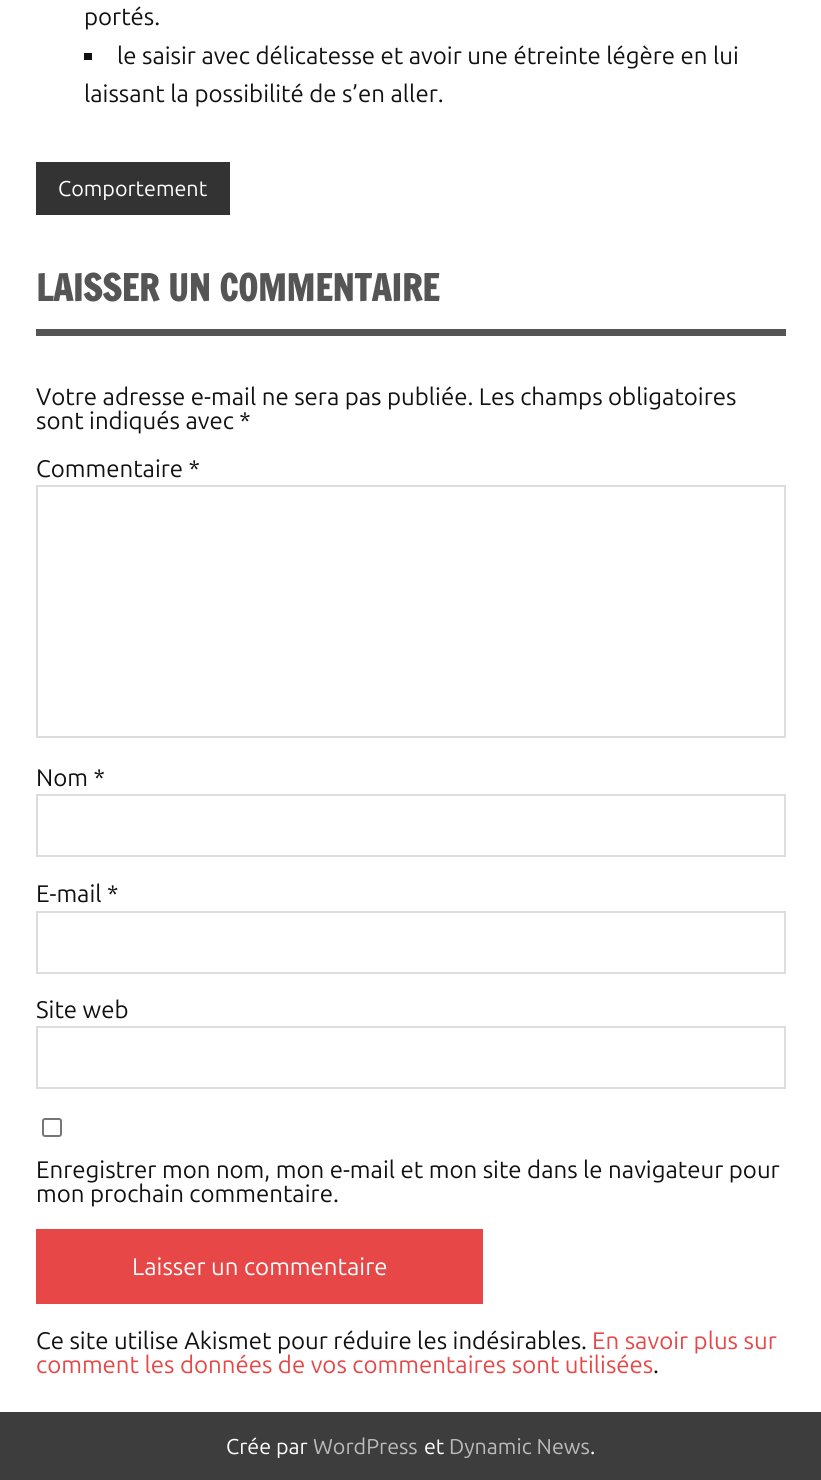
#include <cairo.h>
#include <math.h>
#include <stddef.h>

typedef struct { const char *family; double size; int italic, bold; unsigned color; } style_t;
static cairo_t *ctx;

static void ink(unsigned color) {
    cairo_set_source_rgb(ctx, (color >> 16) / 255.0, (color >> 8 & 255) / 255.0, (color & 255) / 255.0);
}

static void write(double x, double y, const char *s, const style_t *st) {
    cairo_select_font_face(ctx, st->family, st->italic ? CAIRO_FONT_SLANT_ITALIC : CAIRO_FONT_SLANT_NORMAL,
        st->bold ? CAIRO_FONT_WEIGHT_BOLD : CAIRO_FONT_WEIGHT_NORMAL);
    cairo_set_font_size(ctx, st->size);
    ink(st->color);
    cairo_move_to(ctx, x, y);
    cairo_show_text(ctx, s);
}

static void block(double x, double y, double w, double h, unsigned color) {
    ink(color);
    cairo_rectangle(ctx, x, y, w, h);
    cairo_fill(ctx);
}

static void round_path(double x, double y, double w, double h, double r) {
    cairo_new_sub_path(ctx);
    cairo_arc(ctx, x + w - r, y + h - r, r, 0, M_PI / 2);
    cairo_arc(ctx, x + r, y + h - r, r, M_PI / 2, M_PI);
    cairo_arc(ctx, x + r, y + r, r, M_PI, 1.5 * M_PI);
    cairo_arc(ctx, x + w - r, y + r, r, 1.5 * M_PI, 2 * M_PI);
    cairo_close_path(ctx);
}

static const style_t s1 = {"Ubuntu", 24, 0, 0, 0x111111};
static const style_t s2 = {"Ubuntu", 21.5, 0, 0, 0xffffff};
static const style_t s3 = {"Francois One", 36, 0, 1, 0x555555};
static const style_t s4 = {"Ubuntu", 24, 0, 0, 0xffffff};
static const style_t s5 = {"Ubuntu", 24, 0, 0, 0xe84747};
static const style_t s6 = {"Ubuntu", 21.5, 0, 0, 0xbbbbbb};

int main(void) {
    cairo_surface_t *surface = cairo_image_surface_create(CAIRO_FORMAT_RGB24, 821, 1480);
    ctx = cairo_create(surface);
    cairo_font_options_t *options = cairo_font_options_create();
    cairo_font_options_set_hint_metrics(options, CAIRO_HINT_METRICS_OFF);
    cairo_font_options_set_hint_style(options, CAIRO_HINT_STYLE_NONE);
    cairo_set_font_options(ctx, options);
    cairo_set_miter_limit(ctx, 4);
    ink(0xffffff);
    cairo_paint(ctx);
    write(84, 25, "portés.", &s1);
    block(84, 53, 8, 7, 0x111111);
    write(117, 64, "le saisir avec délicatesse et avoir une étreinte légère en lui", &s1);
    write(84, 102, "laissant la possibilité de s’en aller.", &s1);
    block(36, 162, 194, 53, 0x333333);
    write(58, 196, "Comportement", &s2);
    block(36, 329, 750, 7, 0x555555);
    write(36, 301, "LAISSER UN COMMENTAIRE", &s3);
    write(36, 405, "Votre adresse e-mail ne sera pas publiée. Les champs obligatoires", &s1);
    write(36, 429, "sont indiqués avec *", &s1);
    write(36, 477, "Commentaire *", &s1);
    cairo_rectangle(ctx, 37, 486, 748, 251);
    ink(0xdddddd);
    cairo_stroke(ctx);
    write(36, 786, "Nom *", &s1);
    cairo_rectangle(ctx, 37, 795, 748, 61);
    ink(0xdddddd);
    cairo_stroke(ctx);
    write(36, 902, "E-mail *", &s1);
    cairo_rectangle(ctx, 37, 912, 748, 61);
    ink(0xdddddd);
    cairo_stroke(ctx);
    write(36, 1018, "Site web", &s1);
    cairo_rectangle(ctx, 37, 1027, 748, 61);
    ink(0xdddddd);
    cairo_stroke(ctx);
    round_path(43, 1119, 18, 17, 2);
    ink(0x767676);
    cairo_stroke(ctx);
    write(36, 1178, "Enregistrer mon nom, mon e-mail et mon site dans le navigateur pour", &s1);
    write(36, 1202, "mon prochain commentaire.", &s1);
    block(36, 1229, 447, 75, 0xe84747);
    write(132, 1275, "Laisser un commentaire", &s4);
    write(36, 1349, "Ce site utilise Akismet pour réduire les indésirables.", &s1);
    write(592, 1349, "En savoir plus sur", &s5);
    write(36, 1373, "comment les données de vos commentaires sont utilisées", &s5);
    write(653, 1373, ".", &s1);
    block(0, 1412, 821, 68, 0x3d3d3d);
    write(226, 1454, "Crée par", &s2);
    write(313, 1454, "WordPress", &s6);
    write(424, 1454, "et", &s2);
    write(449, 1454, "Dynamic News", &s6);
    write(590, 1454, ".", &s2);
    cairo_surface_write_to_png(surface, "screenshot.png");
    cairo_font_options_destroy(options);
    cairo_destroy(ctx);
    cairo_surface_destroy(surface);
    return 0;
}
